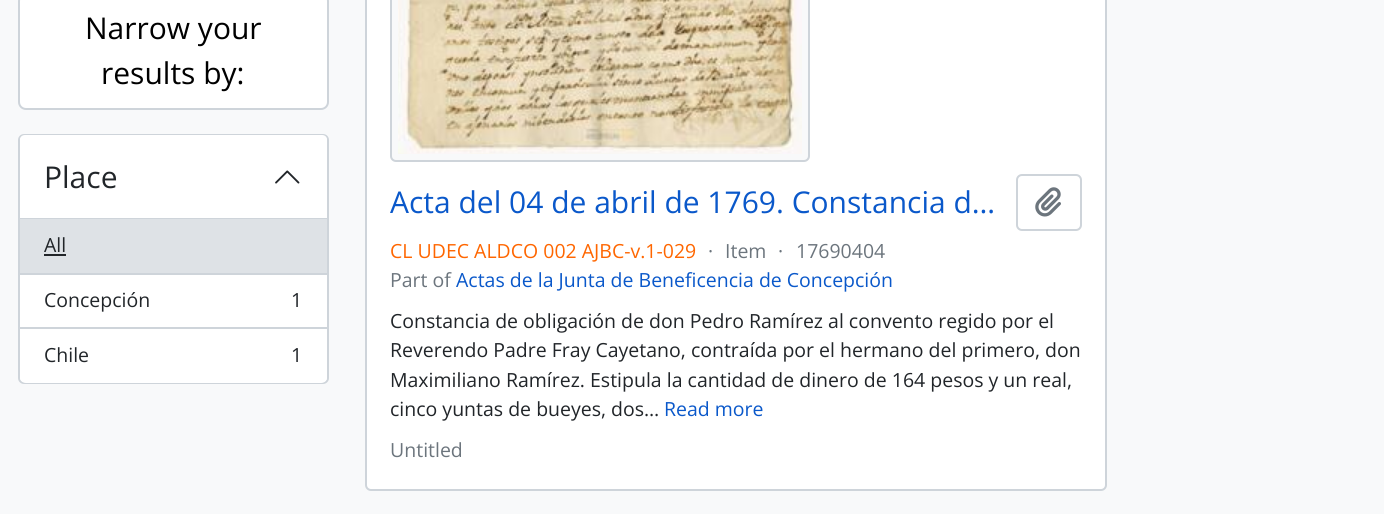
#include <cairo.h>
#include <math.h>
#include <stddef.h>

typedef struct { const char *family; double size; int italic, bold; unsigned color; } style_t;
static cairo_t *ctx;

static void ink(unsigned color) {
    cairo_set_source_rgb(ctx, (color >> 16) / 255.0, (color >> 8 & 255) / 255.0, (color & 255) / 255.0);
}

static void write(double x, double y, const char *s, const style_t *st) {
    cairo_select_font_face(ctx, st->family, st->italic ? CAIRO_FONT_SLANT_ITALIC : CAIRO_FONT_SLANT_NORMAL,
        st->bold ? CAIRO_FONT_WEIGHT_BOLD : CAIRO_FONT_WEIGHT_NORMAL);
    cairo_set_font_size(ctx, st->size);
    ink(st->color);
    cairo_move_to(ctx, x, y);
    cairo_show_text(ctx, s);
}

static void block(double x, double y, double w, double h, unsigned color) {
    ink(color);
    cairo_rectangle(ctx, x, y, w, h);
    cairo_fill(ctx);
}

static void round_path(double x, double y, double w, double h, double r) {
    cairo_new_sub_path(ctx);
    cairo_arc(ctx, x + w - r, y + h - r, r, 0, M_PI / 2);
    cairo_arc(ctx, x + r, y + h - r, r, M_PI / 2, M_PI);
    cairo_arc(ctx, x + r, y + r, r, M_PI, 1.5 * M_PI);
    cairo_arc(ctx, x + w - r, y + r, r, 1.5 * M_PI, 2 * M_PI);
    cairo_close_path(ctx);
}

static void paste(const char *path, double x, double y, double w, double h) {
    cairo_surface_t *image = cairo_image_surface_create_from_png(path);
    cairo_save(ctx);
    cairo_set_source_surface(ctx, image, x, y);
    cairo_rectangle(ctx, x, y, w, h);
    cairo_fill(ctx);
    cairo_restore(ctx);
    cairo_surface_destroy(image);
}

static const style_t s1 = {"Open Sans", 30, 0, 0, 0x000000};
static const style_t s2 = {"Open Sans", 30, 0, 0, 0x212529};
static const style_t s3 = {"Open Sans", 19.5, 0, 0, 0x212529};
static const style_t s4 = {"Open Sans", 30, 0, 0, 0x0a58ca};
static const style_t s5 = {"Open Sans", 19.5, 0, 0, 0xff6600};
static const style_t s6 = {"Open Sans", 19.5, 0, 0, 0x6c757d};
static const style_t s7 = {"Open Sans", 19.5, 0, 0, 0x0a58ca};

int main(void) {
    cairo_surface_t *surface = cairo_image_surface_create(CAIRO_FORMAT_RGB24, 1384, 514);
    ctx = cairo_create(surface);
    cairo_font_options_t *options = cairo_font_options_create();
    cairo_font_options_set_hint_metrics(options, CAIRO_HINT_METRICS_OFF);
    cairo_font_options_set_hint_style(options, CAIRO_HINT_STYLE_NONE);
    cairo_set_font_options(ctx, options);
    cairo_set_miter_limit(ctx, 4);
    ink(0xf8f9fa);
    cairo_paint(ctx);
    ink(0xffffff);
    round_path(19, -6, 309, 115, 7);
    cairo_fill_preserve(ctx);
    ink(0xced4da);
    cairo_stroke(ctx);
    write(85, 39, "Narrow your", &s1);
    write(101, 84, "results by:", &s1);
    ink(0xffffff);
    round_path(19, 135, 309, 248, 5);
    cairo_fill_preserve(ctx);
    ink(0xced4da);
    cairo_stroke(ctx);
    ink(0xffffff);
    cairo_new_path(ctx);
    cairo_move_to(ctx, 25, 135);
    cairo_line_to(ctx, 322, 135);
    cairo_curve_to(ctx, 325, 135, 327, 137, 327, 140);
    cairo_line_to(ctx, 327, 219);
    cairo_line_to(ctx, 20, 219);
    cairo_line_to(ctx, 20, 140);
    cairo_curve_to(ctx, 20, 137, 22, 135, 25, 135);
    cairo_close_path(ctx);
    cairo_fill(ctx);
    block(20, 218, 307, 1, 0xced4da);
    write(44, 188, "Place", &s2);
    paste("pic1.png", 275, 170, 25, 14);
    block(20, 219, 307, 54, 0xdee2e6);
    block(20, 273, 307, 2, 0xced4da);
    write(44, 252, "All", &s3);
    block(44, 254, 22, 2, 0x212529);
    block(20, 327, 307, 2, 0xced4da);
    write(44, 307, "Concepción", &s3);
    write(291, 307, "1", &s3);
    ink(0xffffff);
    cairo_new_path(ctx);
    cairo_move_to(ctx, 20, 329);
    cairo_line_to(ctx, 327, 329);
    cairo_line_to(ctx, 327, 377);
    cairo_curve_to(ctx, 327, 380.5, 324.5, 383, 321, 383);
    cairo_line_to(ctx, 26, 383);
    cairo_curve_to(ctx, 22.5, 383, 20, 380.5, 20, 377);
    cairo_close_path(ctx);
    cairo_fill(ctx);
    write(44, 362, "Chile", &s3);
    write(291, 362, "1", &s3);
    ink(0xffffff);
    round_path(366, -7, 740, 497, 5);
    cairo_fill_preserve(ctx);
    ink(0xced4da);
    cairo_stroke(ctx);
    ink(0xf8f9fa);
    round_path(391, -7, 418, 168, 5);
    cairo_fill_preserve(ctx);
    ink(0xced4da);
    cairo_stroke(ctx);
    paste("pic2.png", 398, 0, 404, 154);
    write(390, 213, "Acta del 04 de abril de 1769. Constancia d…", &s4);
    round_path(1017, 175, 64, 55, 5);
    ink(0xced4da);
    cairo_stroke(ctx);
    paste("pic3.png", 1035, 187, 26, 30);
    write(390, 258, "CL UDEC ALDCO 002 AJBC-v.1-029", &s5);
    write(708, 258, "·", &s6);
    write(725, 258, "Item", &s6);
    write(778, 258, "·", &s6);
    write(796, 258, "17690404", &s6);
    write(390, 287, "Part of", &s6);
    write(456, 287, "Actas de la Junta de Beneficencia de Concepción", &s7);
    write(390, 328, "Constancia de obligación de don Pedro Ramírez al convento regido por el", &s3);
    write(390, 357, "Reverendo Padre Fray Cayetano, contraída por el hermano del primero, don", &s3);
    write(390, 387, "Maximiliano Ramírez. Estipula la cantidad de dinero de 164 pesos y un real,", &s3);
    write(390, 416, "cinco yuntas de bueyes, dos…", &s3);
    write(664, 416, "Read more", &s7);
    write(390, 457, "Untitled", &s6);
    cairo_surface_write_to_png(surface, "screenshot.png");
    cairo_font_options_destroy(options);
    cairo_destroy(ctx);
    cairo_surface_destroy(surface);
    return 0;
}
